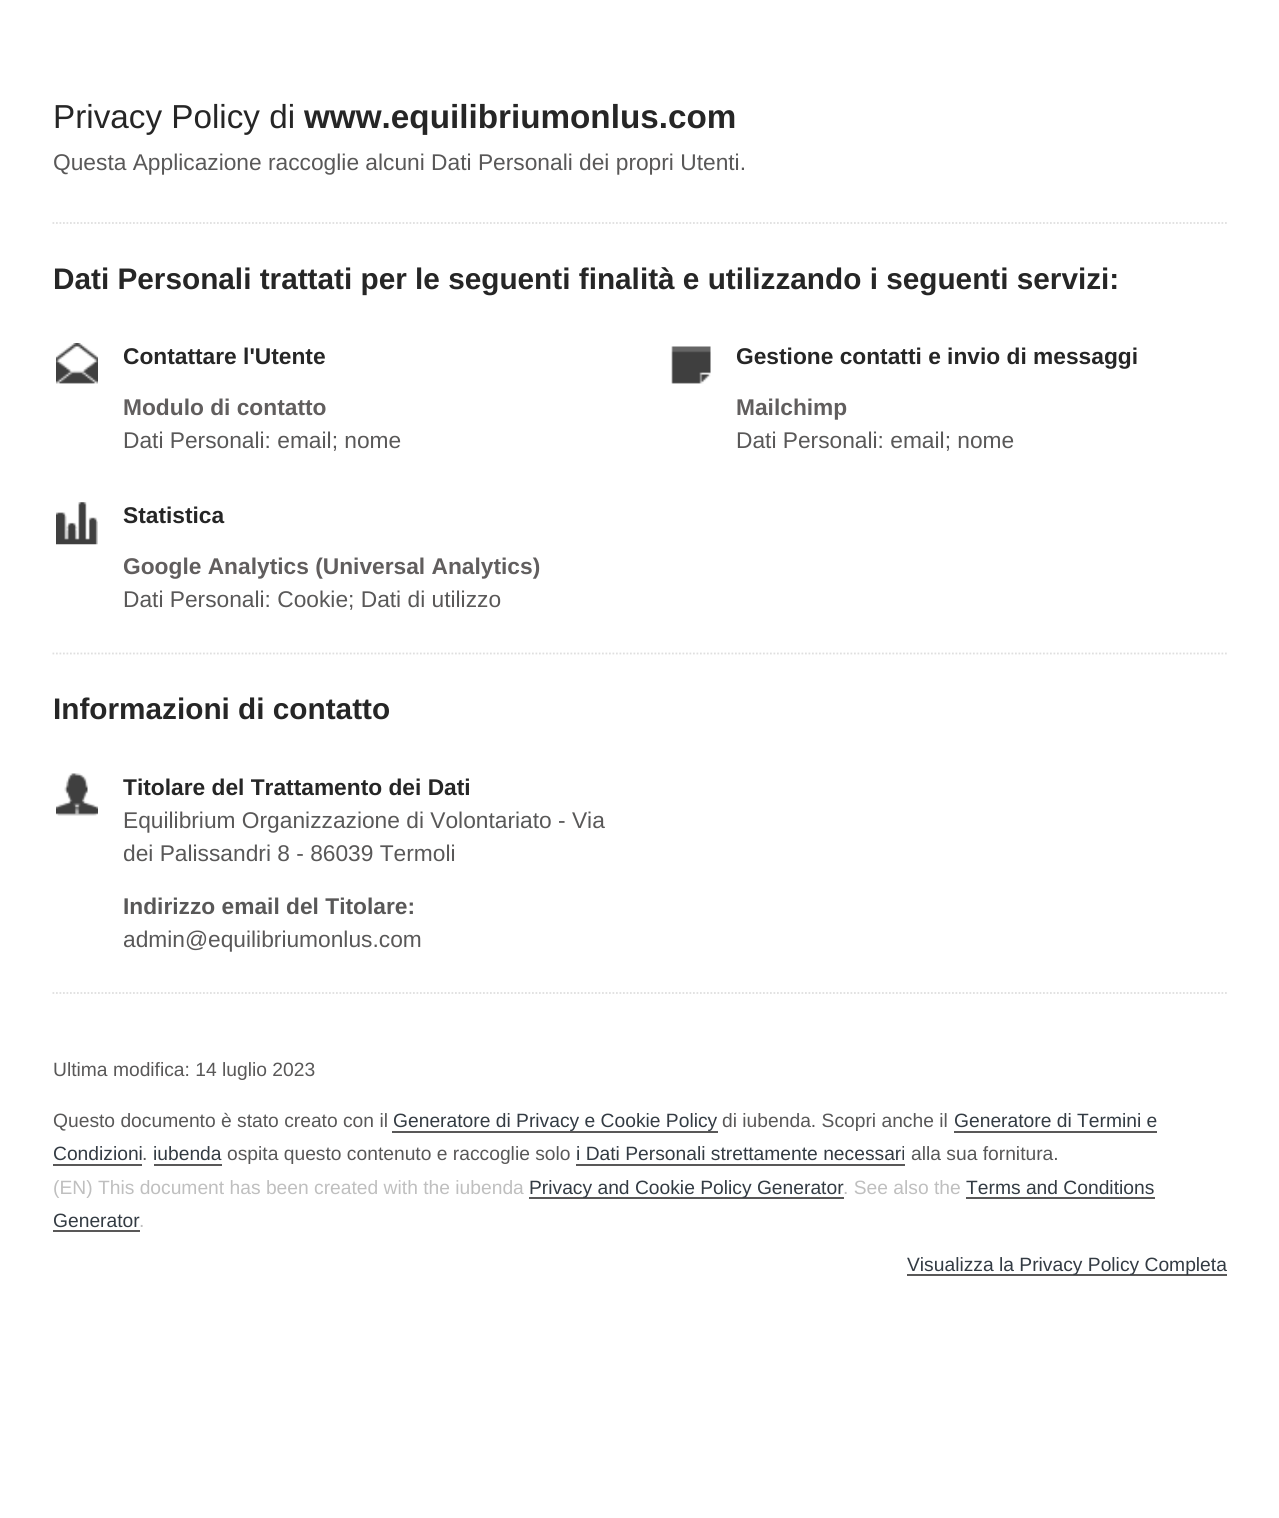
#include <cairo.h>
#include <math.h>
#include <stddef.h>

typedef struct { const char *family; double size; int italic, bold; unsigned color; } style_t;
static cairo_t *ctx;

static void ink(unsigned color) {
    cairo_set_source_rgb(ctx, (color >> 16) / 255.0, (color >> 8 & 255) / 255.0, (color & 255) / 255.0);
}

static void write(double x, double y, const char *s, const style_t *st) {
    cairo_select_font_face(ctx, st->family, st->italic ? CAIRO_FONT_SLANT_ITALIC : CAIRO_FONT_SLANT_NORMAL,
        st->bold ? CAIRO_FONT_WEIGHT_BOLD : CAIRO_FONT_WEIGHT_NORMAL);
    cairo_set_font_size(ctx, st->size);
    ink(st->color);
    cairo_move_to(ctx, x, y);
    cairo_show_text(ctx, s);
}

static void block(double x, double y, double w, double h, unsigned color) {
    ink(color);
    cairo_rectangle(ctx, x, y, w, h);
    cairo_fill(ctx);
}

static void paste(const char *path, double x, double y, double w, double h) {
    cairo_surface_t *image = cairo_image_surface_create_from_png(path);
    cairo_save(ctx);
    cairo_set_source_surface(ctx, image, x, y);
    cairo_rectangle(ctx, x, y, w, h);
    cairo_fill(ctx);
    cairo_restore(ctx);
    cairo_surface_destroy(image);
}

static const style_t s1 = {"Liberation Sans", 33.25, 0, 0, 0x262626};
static const style_t s2 = {"Liberation Sans", 33.25, 0, 1, 0x262626};
static const style_t s3 = {"Liberation Sans", 22.75, 0, 0, 0x595858};
static const style_t s4 = {"Liberation Sans", 29.75, 0, 1, 0x262626};
static const style_t s5 = {"Liberation Sans", 22.75, 0, 1, 0x262626};
static const style_t s6 = {"Liberation Sans", 22.75, 0, 1, 0x615e5e};
static const style_t s7 = {"Liberation Sans", 22.75, 0, 1, 0x595858};
static const style_t s8 = {"Liberation Sans", 19.25, 0, 0, 0x595858};
static const style_t s9 = {"Liberation Sans", 19.25, 0, 0, 0x333b43};
static const style_t s10 = {"Liberation Sans", 19.25, 0, 0, 0xbfbfbf};

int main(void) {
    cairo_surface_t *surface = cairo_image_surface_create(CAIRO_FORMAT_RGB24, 1279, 1518);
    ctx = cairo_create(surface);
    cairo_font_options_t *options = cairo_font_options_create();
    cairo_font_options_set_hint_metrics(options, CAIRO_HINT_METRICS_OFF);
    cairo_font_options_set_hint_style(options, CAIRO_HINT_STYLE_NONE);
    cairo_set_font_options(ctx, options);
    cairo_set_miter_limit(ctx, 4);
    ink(0xffffff);
    cairo_paint(ctx);
    cairo_new_path(ctx);
    cairo_move_to(ctx, 52.5, 223);
    cairo_line_to(ctx, 1227, 223);
    ink(0xdfdfdf);
    cairo_set_line_width(ctx, 1.8);
    cairo_set_dash(ctx, (double[]){1.75, 1.75}, 2, 0);
    cairo_stroke(ctx);
    write(53, 128, "Privacy Policy di", &s1);
    write(304, 128, "www.equilibriumonlus.com", &s2);
    write(53, 170, "Questa Applicazione raccoglie alcuni Dati Personali dei propri Utenti.", &s3);
    write(53, 289, "Dati Personali trattati per le seguenti finalità e utilizzando i seguenti servizi:", &s4);
    cairo_new_path(ctx);
    cairo_move_to(ctx, 52.5, 653.5);
    cairo_line_to(ctx, 1227, 653.5);
    ink(0xdfdfdf);
    cairo_stroke(ctx);
    paste("pic1.png", 56, 343, 42, 41);
    write(123, 364, "Contattare l'Utente", &s5);
    write(123, 415, "Modulo di contatto", &s6);
    write(123, 448, "Dati Personali: email; nome", &s3);
    paste("pic2.png", 671, 346, 40, 38);
    write(736, 364, "Gestione contatti e invio di messaggi", &s5);
    write(736, 415, "Mailchimp", &s6);
    write(736, 448, "Dati Personali: email; nome", &s3);
    paste("pic3.png", 56, 502, 42, 43);
    write(123, 523, "Statistica", &s5);
    write(123, 574, "Google Analytics (Universal Analytics)", &s6);
    write(123, 607, "Dati Personali: Cookie; Dati di utilizzo", &s3);
    write(53, 719, "Informazioni di contatto", &s4);
    cairo_new_path(ctx);
    cairo_move_to(ctx, 52.5, 993);
    cairo_line_to(ctx, 1227, 993);
    ink(0xdfdfdf);
    cairo_stroke(ctx);
    paste("pic4.png", 56, 773, 42, 43);
    write(123, 795, "Titolare del Trattamento dei Dati", &s5);
    write(123, 828, "Equilibrium Organizzazione di Volontariato - Via", &s3);
    write(123, 861, "dei Palissandri 8 - 86039 Termoli", &s3);
    write(123, 914, "Indirizzo email del Titolare:", &s7);
    write(123, 947, "admin@equilibriumonlus.com", &s3);
    write(53, 1076, "Ultima modifica: 14 luglio 2023", &s8);
    write(53, 1127, "Questo documento è stato creato con il", &s8);
    write(393, 1127, "Generatore di Privacy e Cookie Policy", &s9);
    block(392, 1131, 326, 2, 0x595858);
    write(722, 1127, "di iubenda. Scopri anche il", &s8);
    write(954, 1127, "Generatore di Termini e", &s9);
    block(954, 1131, 203, 2, 0x595858);
    write(53, 1160, "Condizioni", &s9);
    block(53, 1164, 89, 2, 0x595858);
    write(142, 1160, ".", &s8);
    write(153, 1160, "iubenda", &s9);
    block(154, 1164, 68, 2, 0x595858);
    write(227, 1160, "ospita questo contenuto e raccoglie solo", &s8);
    write(576, 1160, "i Dati Personali strettamente necessari", &s9);
    block(576, 1164, 329, 2, 0x595858);
    write(911, 1160, "alla sua fornitura.", &s8);
    write(53, 1194, "(EN) This document has been created with the iubenda", &s10);
    block(529, 1197, 315, 2, 0x595858);
    write(529, 1194, "Privacy and Cookie Policy Generator", &s9);
    write(843, 1194, ". See also the", &s10);
    write(966, 1194, "Terms and Conditions", &s9);
    block(966, 1197, 189, 2, 0x595858);
    write(53, 1227, "Generator", &s9);
    write(139, 1227, ".", &s10);
    block(53, 1230, 87, 2, 0x595858);
    block(907, 1274, 320, 2, 0x595858);
    write(907, 1271, "Visualizza la Privacy Policy Completa", &s9);
    cairo_surface_write_to_png(surface, "screenshot.png");
    cairo_font_options_destroy(options);
    cairo_destroy(ctx);
    cairo_surface_destroy(surface);
    return 0;
}
